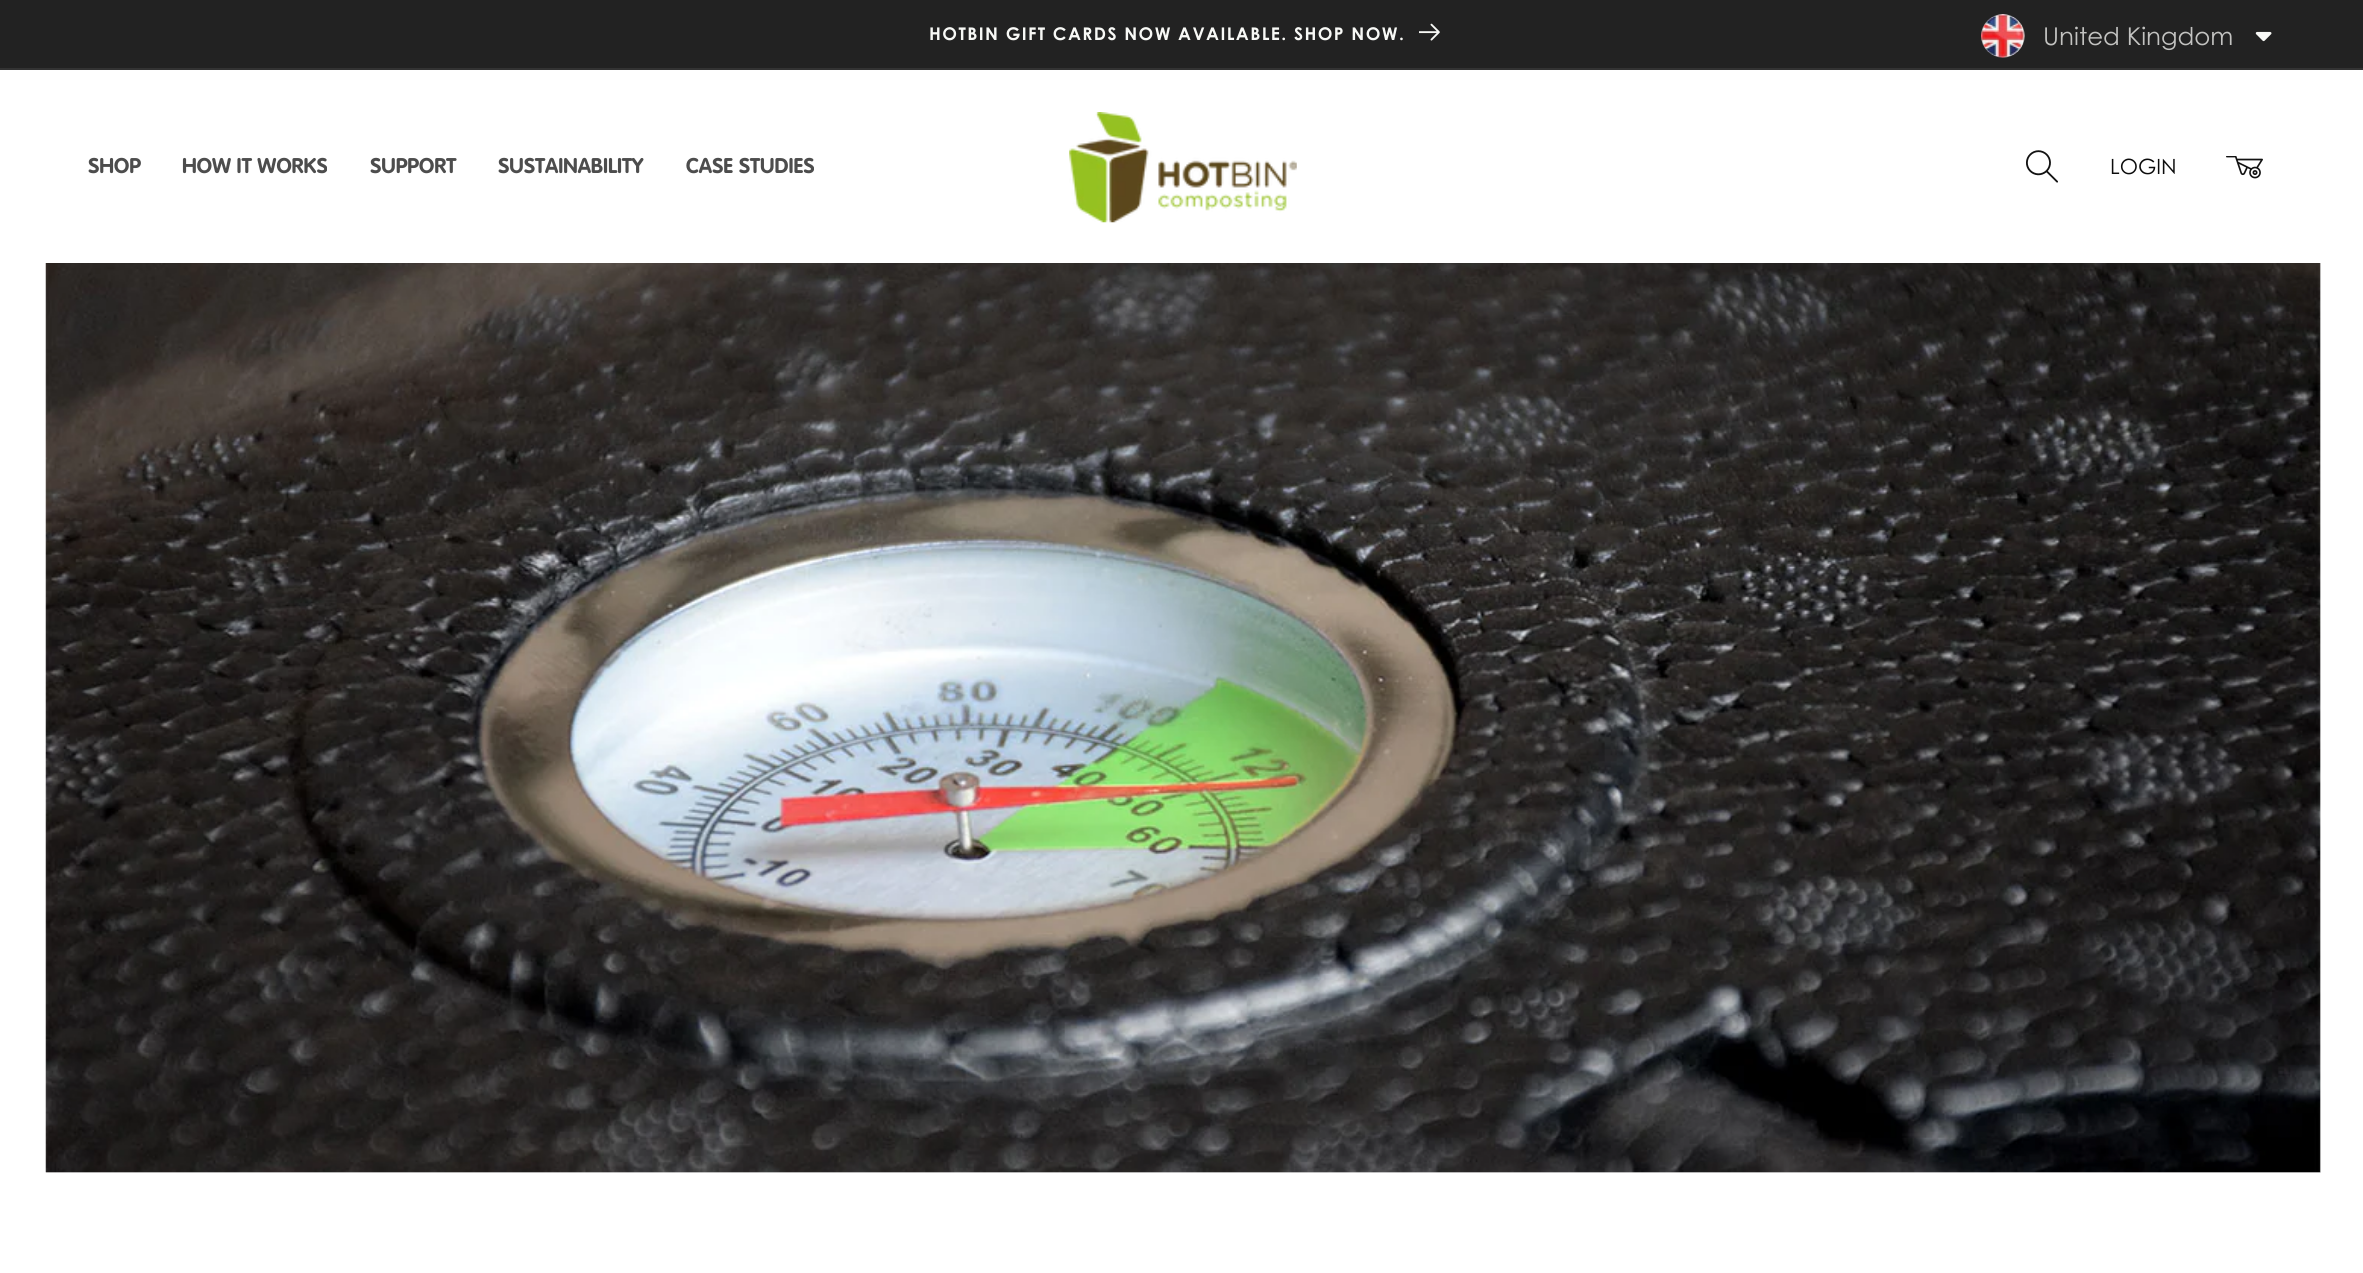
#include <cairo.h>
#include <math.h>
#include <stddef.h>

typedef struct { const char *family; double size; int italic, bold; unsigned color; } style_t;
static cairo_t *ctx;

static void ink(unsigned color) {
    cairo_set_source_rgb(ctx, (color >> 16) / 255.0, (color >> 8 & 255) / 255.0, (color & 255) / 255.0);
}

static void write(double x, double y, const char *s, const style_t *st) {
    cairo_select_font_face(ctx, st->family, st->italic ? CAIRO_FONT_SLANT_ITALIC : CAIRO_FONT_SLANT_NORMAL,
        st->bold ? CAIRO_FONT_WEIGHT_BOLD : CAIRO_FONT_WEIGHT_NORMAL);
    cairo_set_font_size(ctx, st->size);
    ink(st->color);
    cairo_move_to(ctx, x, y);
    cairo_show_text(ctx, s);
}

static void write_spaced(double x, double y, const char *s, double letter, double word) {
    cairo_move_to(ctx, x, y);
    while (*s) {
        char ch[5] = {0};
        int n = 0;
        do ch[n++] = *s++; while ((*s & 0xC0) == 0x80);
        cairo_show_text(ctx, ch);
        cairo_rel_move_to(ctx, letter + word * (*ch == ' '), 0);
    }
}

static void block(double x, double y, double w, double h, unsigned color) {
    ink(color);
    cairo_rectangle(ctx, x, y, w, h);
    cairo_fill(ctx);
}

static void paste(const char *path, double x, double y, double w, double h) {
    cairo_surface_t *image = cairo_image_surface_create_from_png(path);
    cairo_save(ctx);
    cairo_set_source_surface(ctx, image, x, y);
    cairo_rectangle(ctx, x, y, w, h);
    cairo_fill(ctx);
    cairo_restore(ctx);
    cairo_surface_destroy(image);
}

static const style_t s1 = {"Century Gothic", 24.5, 0, 0, 0xc3c3c1};
static const style_t s2 = {"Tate", 21, 0, 1, 0x4d4d4d};
static const style_t s3 = {"Century Gothic", 21, 0, 0, 0x0c0c0c};

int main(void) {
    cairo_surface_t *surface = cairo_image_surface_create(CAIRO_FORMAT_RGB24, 2363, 1273);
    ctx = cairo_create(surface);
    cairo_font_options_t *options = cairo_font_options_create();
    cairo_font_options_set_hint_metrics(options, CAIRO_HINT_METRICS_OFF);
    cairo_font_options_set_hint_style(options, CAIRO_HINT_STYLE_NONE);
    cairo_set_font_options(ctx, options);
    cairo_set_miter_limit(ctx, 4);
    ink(0xffffff);
    cairo_paint(ctx);
    block(0, 0, 2363, 68, 0x222222);
    block(0, 68, 2363, 2, 0x333333);
    cairo_select_font_face(ctx, "Century Gothic", CAIRO_FONT_SLANT_NORMAL, CAIRO_FONT_WEIGHT_BOLD);
    cairo_set_font_size(ctx, 17.5);
    ink(0xf8f9f6);
    write_spaced(929, 40, "HOTBIN GIFT CARDS NOW AVAILABLE. SHOP NOW.", 1.4, 0);
    paste("pic1.png", 1419, 23, 21, 18);
    paste("pic2.png", 1981, 14, 44, 44);
    write(2043, 45, "United Kingdom", &s1);
    paste("pic3.png", 2255, 31, 17, 11);
    write(88, 173, "SHOP", &s2);
    write(182, 173, "HOW IT WORKS", &s2);
    write(370, 173, "SUPPORT", &s2);
    write(498, 173, "SUSTAINABILITY", &s2);
    write(686, 173, "CASE STUDIES", &s2);
    paste("pic4.png", 1069, 112, 228, 111);
    paste("pic5.png", 2026, 150, 32, 33);
    write(2110, 174, "LOGIN", &s3);
    paste("pic6.png", 2226, 156, 37, 23);
    block(46, 263, 2275, 910, 0xe8e8e8);
    paste("pic7.png", 45, 263, 2276, 910);
    cairo_surface_write_to_png(surface, "screenshot.png");
    cairo_font_options_destroy(options);
    cairo_destroy(ctx);
    cairo_surface_destroy(surface);
    return 0;
}
